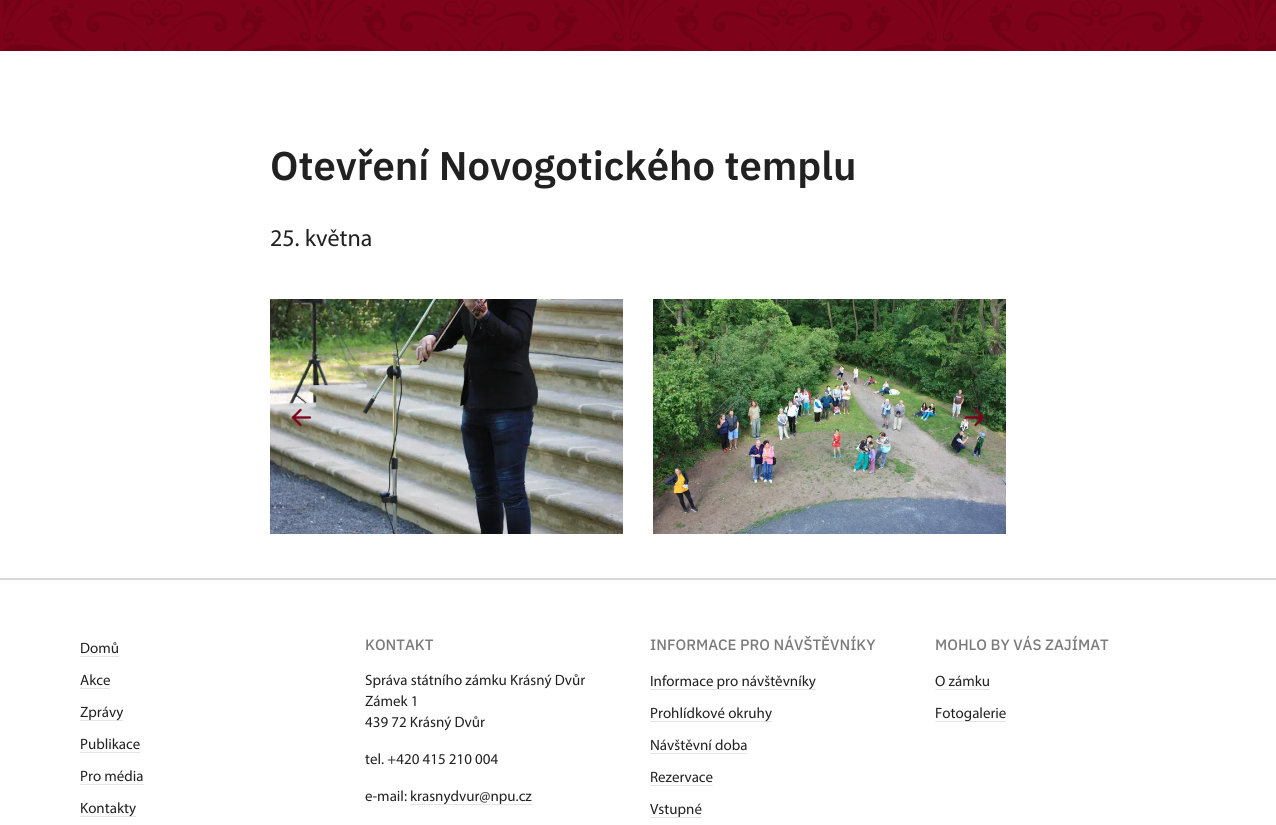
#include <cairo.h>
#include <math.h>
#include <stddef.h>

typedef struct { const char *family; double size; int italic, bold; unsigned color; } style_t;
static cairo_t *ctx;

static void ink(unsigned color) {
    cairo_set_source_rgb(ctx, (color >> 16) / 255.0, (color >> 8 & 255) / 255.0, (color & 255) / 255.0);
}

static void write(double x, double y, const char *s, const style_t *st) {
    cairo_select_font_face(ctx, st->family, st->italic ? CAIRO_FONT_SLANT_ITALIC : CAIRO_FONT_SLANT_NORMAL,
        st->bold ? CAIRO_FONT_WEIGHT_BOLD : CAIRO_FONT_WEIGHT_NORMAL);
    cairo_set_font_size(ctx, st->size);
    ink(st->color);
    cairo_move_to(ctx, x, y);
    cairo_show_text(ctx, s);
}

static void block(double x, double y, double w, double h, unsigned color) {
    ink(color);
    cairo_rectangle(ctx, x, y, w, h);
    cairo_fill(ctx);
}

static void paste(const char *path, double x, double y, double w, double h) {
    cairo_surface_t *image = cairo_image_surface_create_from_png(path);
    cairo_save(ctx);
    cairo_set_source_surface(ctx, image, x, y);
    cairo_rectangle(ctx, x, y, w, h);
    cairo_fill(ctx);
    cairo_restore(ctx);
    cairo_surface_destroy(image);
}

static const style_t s1 = {"IBM Plex Sans SemiBold", 40, 0, 0, 0x212121};
static const style_t s2 = {"Myriad", 24, 0, 0, 0x212121};
static const style_t s3 = {"Myriad", 15, 0, 0, 0x212121};
static const style_t s4 = {"IBM Plex Sans Medium", 15, 0, 0, 0x7b7b7b};

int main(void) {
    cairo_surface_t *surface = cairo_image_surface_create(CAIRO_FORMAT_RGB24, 1276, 825);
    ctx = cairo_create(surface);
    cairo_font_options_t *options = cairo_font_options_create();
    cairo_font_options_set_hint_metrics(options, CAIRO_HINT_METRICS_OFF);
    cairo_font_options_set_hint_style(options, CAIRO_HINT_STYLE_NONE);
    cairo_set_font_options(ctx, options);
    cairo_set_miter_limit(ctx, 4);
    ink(0xffffff);
    cairo_paint(ctx);
    block(0, 0, 1276, 51, 0x7e0219);
    paste("pic1.png", 2, 0, 1274, 51);
    write(270, 180, "Otevření Novogotického templu", &s1);
    write(270, 246, "25. května", &s2);
    paste("pic2.png", 270, 299, 353, 235);
    paste("pic3.png", 653, 299, 353, 235);
    cairo_new_path(ctx);
    cairo_move_to(ctx, 310, 417.5);
    cairo_line_to(ctx, 293, 417.5);
    cairo_move_to(ctx, 300.5, 425);
    cairo_line_to(ctx, 293, 417.5);
    cairo_move_to(ctx, 300.5, 410);
    cairo_line_to(ctx, 293, 417.5);
    ink(0x7e0219);
    cairo_set_line_width(ctx, 2.3);
    cairo_set_line_cap(ctx, CAIRO_LINE_CAP_ROUND);
    cairo_set_line_join(ctx, CAIRO_LINE_JOIN_ROUND);
    cairo_stroke(ctx);
    cairo_new_path(ctx);
    cairo_move_to(ctx, 966, 417.5);
    cairo_line_to(ctx, 983, 417.5);
    cairo_move_to(ctx, 975.5, 425);
    cairo_line_to(ctx, 983, 417.5);
    cairo_move_to(ctx, 975.5, 410);
    cairo_line_to(ctx, 983, 417.5);
    cairo_stroke(ctx);
    block(0, 578, 1276, 2, 0xdad6d6);
    write(80, 653, "Domů", &s3);
    block(80, 656, 39, 1, 0xe4e4e4);
    write(80, 685, "Akce", &s3);
    block(80, 688, 30, 1, 0xe4e4e4);
    block(80, 720, 43, 1, 0xe4e4e4);
    write(80, 717, "Zprávy", &s3);
    write(80, 749, "Publikace", &s3);
    block(80, 752, 60, 1, 0xe4e4e4);
    write(80, 781, "Pro média", &s3);
    block(80, 784, 64, 1, 0xe4e4e4);
    block(80, 816, 56, 1, 0xe4e4e4);
    write(80, 813, "Kontakty", &s3);
    write(365, 650, "KONTAKT", &s4);
    write(365, 685, "Správa státního zámku Krásný Dvůr", &s3);
    write(365, 706, "Zámek 1", &s3);
    write(365, 727, "439 72 Krásný Dvůr", &s3);
    write(365, 764, "tel. +420 415 210 004", &s3);
    write(365, 801, "e-mail:", &s3);
    block(410, 804, 122, 1, 0xe4e4e4);
    write(410, 801, "krasnydvur@npu.cz", &s3);
    write(650, 650, "INFORMACE PRO NÁVŠTĚVNÍKY", &s4);
    block(650, 689, 166, 1, 0xe4e4e4);
    write(650, 686, "Informace pro návštěvníky", &s3);
    block(650, 721, 122, 1, 0xe4e4e4);
    write(650, 718, "Prohlídkové okruhy", &s3);
    write(650, 750, "Návštěvní doba", &s3);
    block(650, 753, 97, 1, 0xe4e4e4);
    write(650, 782, "Rezervace", &s3);
    block(650, 785, 63, 1, 0xe4e4e4);
    write(650, 814, "Vstupné", &s3);
    block(650, 817, 52, 1, 0xe4e4e4);
    write(935, 650, "MOHLO BY VÁS ZAJÍMAT", &s4);
    write(935, 686, "O zámku", &s3);
    block(935, 689, 55, 1, 0xe4e4e4);
    block(935, 721, 71, 1, 0xe4e4e4);
    write(935, 718, "Fotogalerie", &s3);
    cairo_surface_write_to_png(surface, "screenshot.png");
    cairo_font_options_destroy(options);
    cairo_destroy(ctx);
    cairo_surface_destroy(surface);
    return 0;
}
